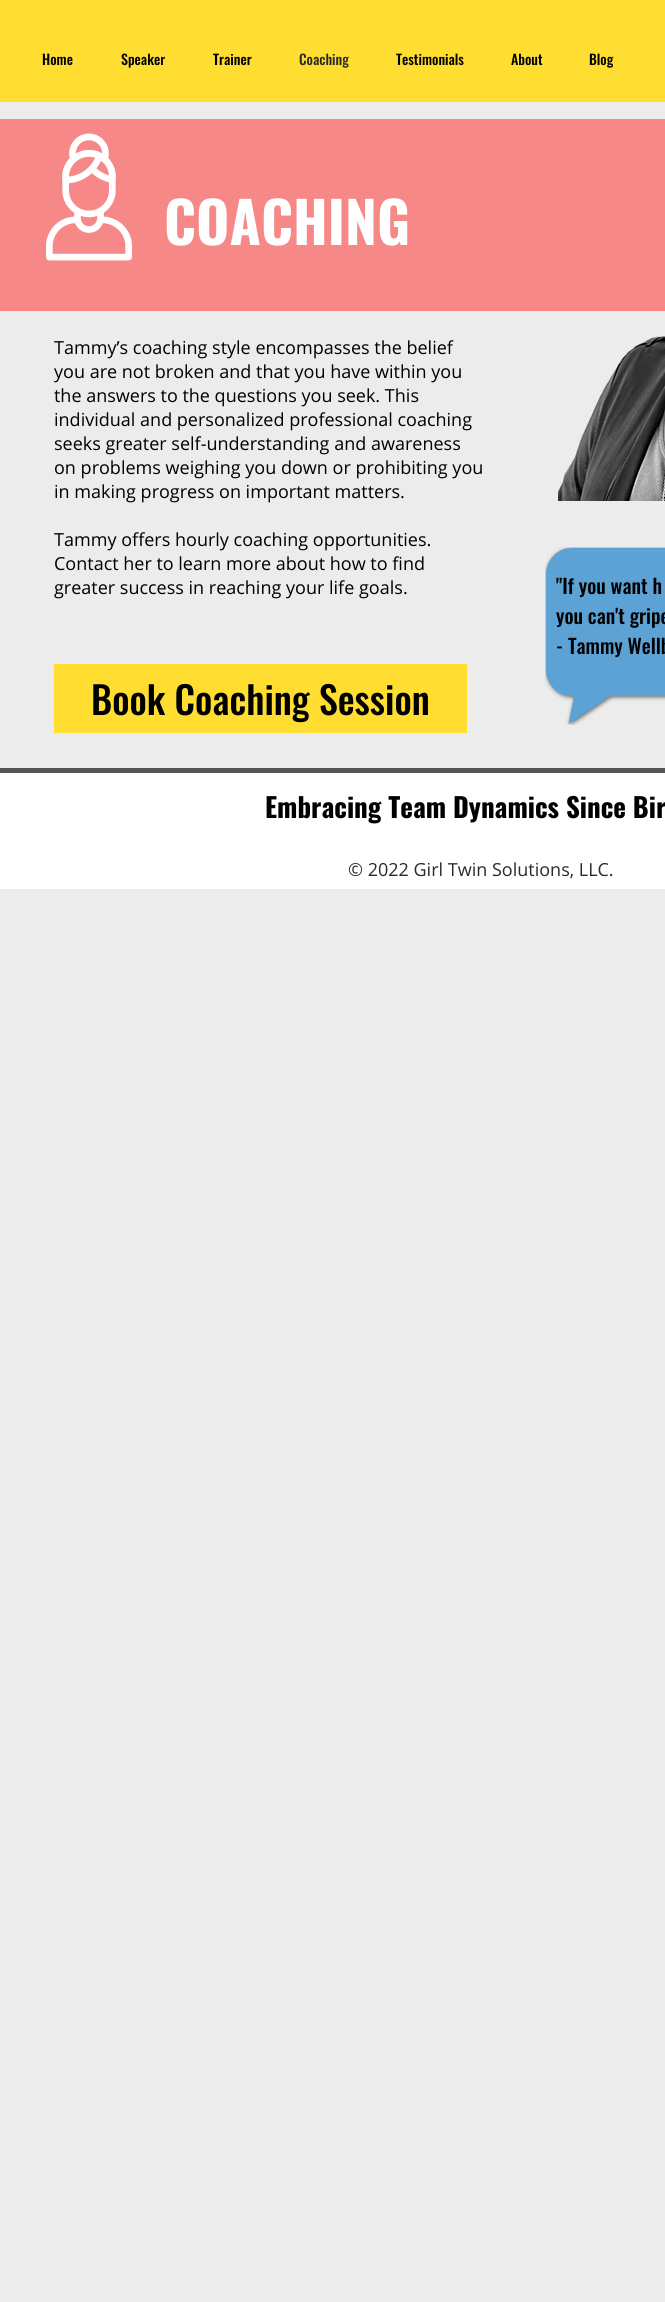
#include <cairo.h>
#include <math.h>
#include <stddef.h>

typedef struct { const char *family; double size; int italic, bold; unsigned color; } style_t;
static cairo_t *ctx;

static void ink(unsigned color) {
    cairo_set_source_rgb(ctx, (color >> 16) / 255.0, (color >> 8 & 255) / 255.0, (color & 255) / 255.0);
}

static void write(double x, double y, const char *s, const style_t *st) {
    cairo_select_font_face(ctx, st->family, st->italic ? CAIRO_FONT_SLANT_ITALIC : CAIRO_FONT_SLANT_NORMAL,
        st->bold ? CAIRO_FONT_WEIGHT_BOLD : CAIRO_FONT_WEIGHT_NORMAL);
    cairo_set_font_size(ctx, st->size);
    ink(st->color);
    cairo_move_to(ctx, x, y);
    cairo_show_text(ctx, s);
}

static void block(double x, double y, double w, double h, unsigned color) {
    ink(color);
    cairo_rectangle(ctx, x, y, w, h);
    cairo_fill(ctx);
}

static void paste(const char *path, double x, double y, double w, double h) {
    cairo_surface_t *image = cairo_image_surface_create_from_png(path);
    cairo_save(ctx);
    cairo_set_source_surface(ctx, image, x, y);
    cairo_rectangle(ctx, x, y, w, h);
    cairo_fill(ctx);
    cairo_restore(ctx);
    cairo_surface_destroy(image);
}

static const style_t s1 = {"Oswald Medium", 14, 0, 0, 0x000000};
static const style_t s2 = {"Oswald Medium", 14, 0, 0, 0x2a2a2a};
static const style_t s3 = {"Oswald", 57, 0, 1, 0xffffff};
static const style_t s4 = {"Open Sans", 18, 0, 0, 0x000000};
static const style_t s5 = {"Oswald Medium", 20, 0, 0, 0x000000};
static const style_t s6 = {"Oswald Medium", 38, 0, 0, 0x000000};
static const style_t s7 = {"Oswald", 27, 0, 1, 0x000000};
static const style_t s8 = {"Open Sans", 18, 0, 0, 0x2a2a2a};

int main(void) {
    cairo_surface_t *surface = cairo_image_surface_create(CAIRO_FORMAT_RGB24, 665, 2302);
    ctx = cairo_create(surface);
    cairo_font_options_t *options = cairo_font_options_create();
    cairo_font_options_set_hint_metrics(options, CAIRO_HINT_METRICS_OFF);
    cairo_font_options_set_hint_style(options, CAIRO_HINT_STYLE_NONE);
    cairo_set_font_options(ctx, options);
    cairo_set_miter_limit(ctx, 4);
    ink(0xececec);
    cairo_paint(ctx);
    block(0, 0, 665, 102, 0xffdd31);
    write(42, 65, "Home", &s1);
    write(121, 65, "Speaker", &s1);
    write(213, 65, "Trainer", &s1);
    write(299, 65, "Coaching", &s2);
    write(396, 65, "Testimonials", &s1);
    write(511, 65, "About", &s1);
    write(589, 65, "Blog", &s1);
    block(0, 119, 665, 192, 0xf78888);
    paste("pic1.png", 46, 133, 86, 128);
    write(164, 245, "COACHING", &s3);
    write(54, 354, "Tammy’s coaching style encompasses the belief", &s4);
    write(54, 378, "you are not broken and that you have within you", &s4);
    write(54, 402, "the answers to the questions you seek. This", &s4);
    write(54, 426, "individual and personalized professional coaching", &s4);
    write(54, 450, "seeks greater self-understanding and awareness", &s4);
    write(54, 474, "on problems weighing you down or prohibiting you", &s4);
    write(54, 498, "in making progress on important matters.", &s4);
    write(54, 546, "Tammy offers hourly coaching opportunities.", &s4);
    write(54, 570, "Contact her to learn more about how to find", &s4);
    write(54, 594, "greater success in reaching your life goals.", &s4);
    paste("pic2.png", 558, 336, 107, 165);
    paste("pic3.png", 545, 547, 120, 178);
    write(556, 594, "\"If you want h", &s5);
    write(556, 624, "you can't gripe", &s5);
    write(556, 654, "- Tammy Wellb", &s5);
    block(54, 664, 413, 69, 0xffdd31);
    write(91, 715, "Book Coaching Session", &s6);
    block(0, 773, 665, 116, 0xffffff);
    block(0, 768, 665, 5, 0x555555);
    write(265, 818, "Embracing Team Dynamics Since Bir", &s7);
    write(348, 876, "© 2022 Girl Twin Solutions, LLC.", &s8);
    cairo_surface_write_to_png(surface, "screenshot.png");
    cairo_font_options_destroy(options);
    cairo_destroy(ctx);
    cairo_surface_destroy(surface);
    return 0;
}
